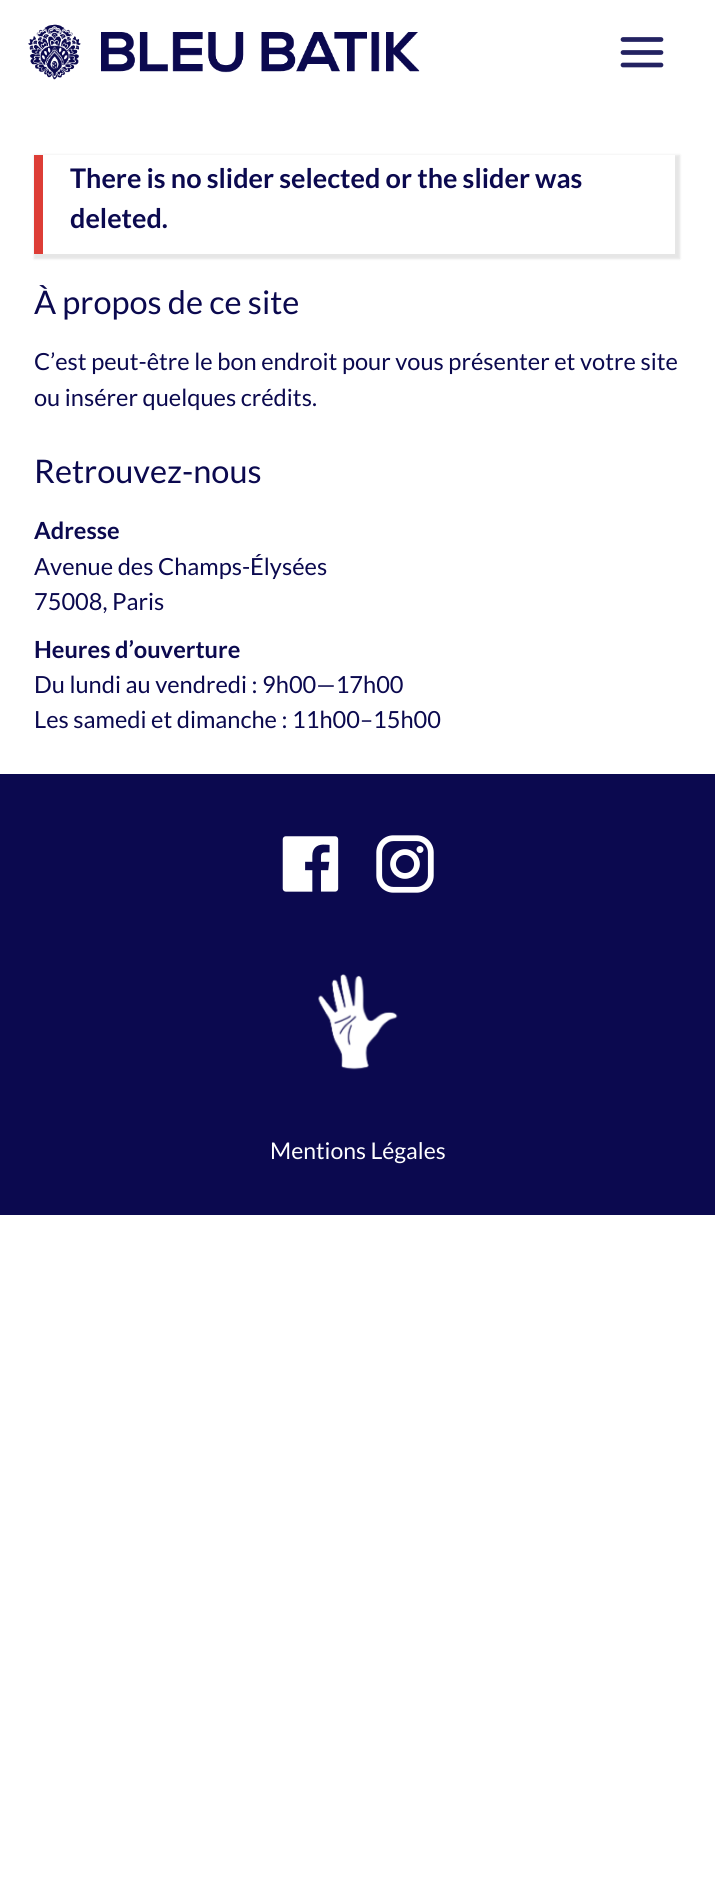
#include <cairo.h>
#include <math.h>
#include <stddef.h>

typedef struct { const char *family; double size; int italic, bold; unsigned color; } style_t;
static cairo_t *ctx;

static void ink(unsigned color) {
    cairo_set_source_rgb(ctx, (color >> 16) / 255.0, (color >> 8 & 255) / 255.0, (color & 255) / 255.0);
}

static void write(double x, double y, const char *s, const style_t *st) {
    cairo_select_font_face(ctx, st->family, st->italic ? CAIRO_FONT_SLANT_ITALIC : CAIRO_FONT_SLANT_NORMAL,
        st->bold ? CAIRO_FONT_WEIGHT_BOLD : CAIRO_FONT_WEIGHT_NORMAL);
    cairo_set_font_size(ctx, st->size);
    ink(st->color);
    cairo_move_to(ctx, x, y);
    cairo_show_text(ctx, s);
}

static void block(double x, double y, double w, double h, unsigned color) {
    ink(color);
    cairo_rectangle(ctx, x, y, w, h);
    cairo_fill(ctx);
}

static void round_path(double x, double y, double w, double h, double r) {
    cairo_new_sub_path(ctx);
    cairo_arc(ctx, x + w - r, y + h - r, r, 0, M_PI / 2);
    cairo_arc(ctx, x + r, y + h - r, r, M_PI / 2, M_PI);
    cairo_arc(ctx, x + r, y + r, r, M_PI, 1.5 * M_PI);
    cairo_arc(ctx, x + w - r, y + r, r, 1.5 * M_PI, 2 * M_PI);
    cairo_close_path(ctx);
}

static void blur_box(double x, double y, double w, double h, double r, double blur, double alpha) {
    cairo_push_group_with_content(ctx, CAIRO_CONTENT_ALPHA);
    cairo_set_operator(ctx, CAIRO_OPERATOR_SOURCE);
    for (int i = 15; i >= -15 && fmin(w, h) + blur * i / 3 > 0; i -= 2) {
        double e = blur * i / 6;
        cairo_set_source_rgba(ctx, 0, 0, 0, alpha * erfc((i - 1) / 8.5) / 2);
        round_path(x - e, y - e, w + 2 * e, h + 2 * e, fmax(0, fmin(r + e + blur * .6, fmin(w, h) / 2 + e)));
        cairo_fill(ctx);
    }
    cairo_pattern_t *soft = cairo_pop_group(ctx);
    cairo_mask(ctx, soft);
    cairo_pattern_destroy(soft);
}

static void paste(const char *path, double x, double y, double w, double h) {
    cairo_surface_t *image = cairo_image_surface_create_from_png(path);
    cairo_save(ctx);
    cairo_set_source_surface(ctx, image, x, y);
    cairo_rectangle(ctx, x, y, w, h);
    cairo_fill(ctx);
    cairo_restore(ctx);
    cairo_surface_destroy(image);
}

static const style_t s1 = {"Lato", 27, 0, 1, 0x0b094f};
static const style_t s2 = {"Lato", 32.5, 0, 0, 0x0b094f};
static const style_t s3 = {"Lato", 23.6, 0, 0, 0x0b094f};
static const style_t s4 = {"Lato", 23.6, 0, 1, 0x0b094f};
static const style_t s5 = {"Lato", 23, 0, 0, 0xffffff};

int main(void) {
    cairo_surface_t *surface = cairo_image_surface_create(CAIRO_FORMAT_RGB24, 715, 1879);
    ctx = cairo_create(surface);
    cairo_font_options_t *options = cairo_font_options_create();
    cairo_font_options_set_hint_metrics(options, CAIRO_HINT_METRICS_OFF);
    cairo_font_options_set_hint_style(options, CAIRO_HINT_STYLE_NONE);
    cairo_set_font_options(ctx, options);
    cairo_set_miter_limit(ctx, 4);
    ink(0xffffff);
    cairo_paint(ctx);
    paste("pic1.png", 28, 24, 392, 56);
    cairo_new_path(ctx);
    cairo_move_to(ctx, 623, 39.5);
    cairo_line_to(ctx, 661, 39.5);
    cairo_move_to(ctx, 623, 52.5);
    cairo_line_to(ctx, 661, 52.5);
    cairo_move_to(ctx, 623, 65);
    cairo_line_to(ctx, 661, 65);
    ink(0x232261);
    cairo_set_line_width(ctx, 4.7);
    cairo_set_line_cap(ctx, CAIRO_LINE_CAP_ROUND);
    cairo_stroke(ctx);
    ink(0x000000);
    blur_box(34, 155, 646, 104, 0, 1, 0.1);
    block(43, 155, 632, 99, 0xffffff);
    block(34, 155, 9, 99, 0xdd3d36);
    write(70, 188, "There is no slider selected or the slider was", &s1);
    write(70, 228, "deleted.", &s1);
    write(34, 314, "À propos de ce site", &s2);
    write(34, 370, "C’est peut-être le bon endroit pour vous présenter et votre site", &s3);
    write(34, 406, "ou insérer quelques crédits.", &s3);
    write(34, 483, "Retrouvez-nous", &s2);
    write(34, 539, "Adresse", &s4);
    write(34, 575, "Avenue des Champs-Élysées", &s3);
    write(34, 610, "75008, Paris", &s3);
    write(34, 658, "Heures d’ouverture", &s4);
    write(34, 693, "Du lundi au vendredi : 9h00—17h00", &s3);
    write(34, 728, "Les samedi et dimanche : 11h00–15h00", &s3);
    block(0, 774, 715, 441, 0x0b094f);
    paste("pic2.png", 282, 836, 57, 56);
    paste("pic3.png", 376, 835, 58, 58);
    paste("pic4.png", 318, 974, 80, 96);
    write(270, 1159, "Mentions Légales", &s5);
    cairo_surface_write_to_png(surface, "screenshot.png");
    cairo_font_options_destroy(options);
    cairo_destroy(ctx);
    cairo_surface_destroy(surface);
    return 0;
}
